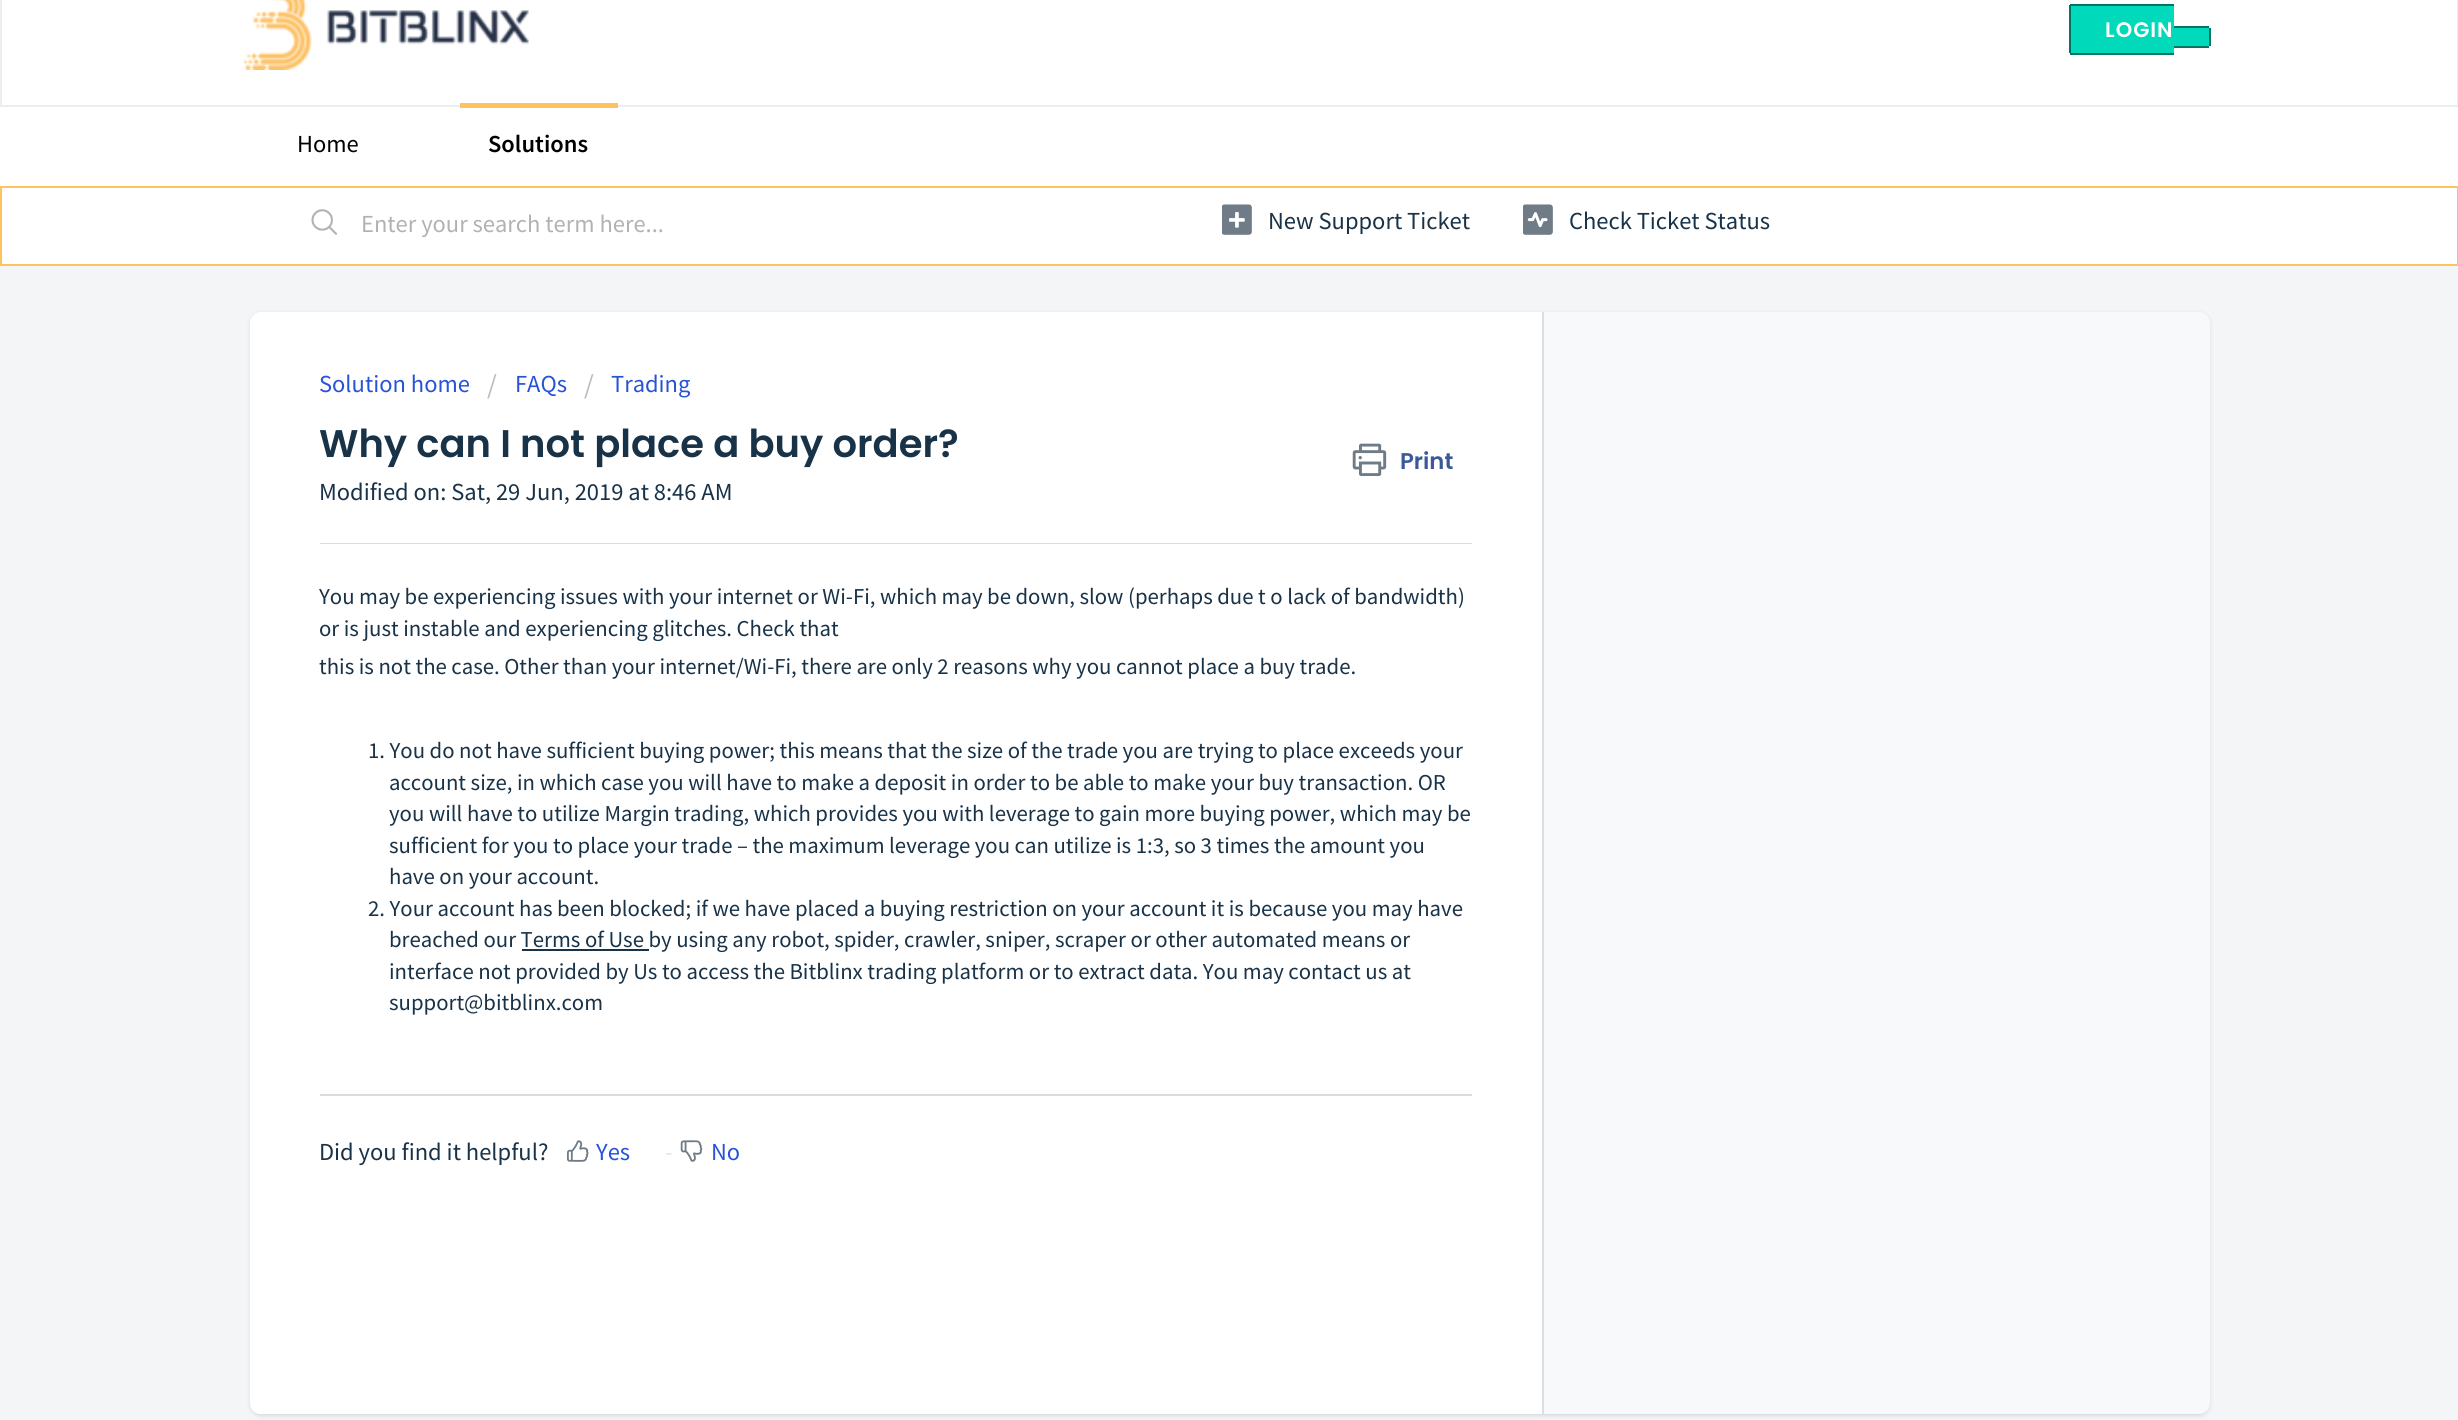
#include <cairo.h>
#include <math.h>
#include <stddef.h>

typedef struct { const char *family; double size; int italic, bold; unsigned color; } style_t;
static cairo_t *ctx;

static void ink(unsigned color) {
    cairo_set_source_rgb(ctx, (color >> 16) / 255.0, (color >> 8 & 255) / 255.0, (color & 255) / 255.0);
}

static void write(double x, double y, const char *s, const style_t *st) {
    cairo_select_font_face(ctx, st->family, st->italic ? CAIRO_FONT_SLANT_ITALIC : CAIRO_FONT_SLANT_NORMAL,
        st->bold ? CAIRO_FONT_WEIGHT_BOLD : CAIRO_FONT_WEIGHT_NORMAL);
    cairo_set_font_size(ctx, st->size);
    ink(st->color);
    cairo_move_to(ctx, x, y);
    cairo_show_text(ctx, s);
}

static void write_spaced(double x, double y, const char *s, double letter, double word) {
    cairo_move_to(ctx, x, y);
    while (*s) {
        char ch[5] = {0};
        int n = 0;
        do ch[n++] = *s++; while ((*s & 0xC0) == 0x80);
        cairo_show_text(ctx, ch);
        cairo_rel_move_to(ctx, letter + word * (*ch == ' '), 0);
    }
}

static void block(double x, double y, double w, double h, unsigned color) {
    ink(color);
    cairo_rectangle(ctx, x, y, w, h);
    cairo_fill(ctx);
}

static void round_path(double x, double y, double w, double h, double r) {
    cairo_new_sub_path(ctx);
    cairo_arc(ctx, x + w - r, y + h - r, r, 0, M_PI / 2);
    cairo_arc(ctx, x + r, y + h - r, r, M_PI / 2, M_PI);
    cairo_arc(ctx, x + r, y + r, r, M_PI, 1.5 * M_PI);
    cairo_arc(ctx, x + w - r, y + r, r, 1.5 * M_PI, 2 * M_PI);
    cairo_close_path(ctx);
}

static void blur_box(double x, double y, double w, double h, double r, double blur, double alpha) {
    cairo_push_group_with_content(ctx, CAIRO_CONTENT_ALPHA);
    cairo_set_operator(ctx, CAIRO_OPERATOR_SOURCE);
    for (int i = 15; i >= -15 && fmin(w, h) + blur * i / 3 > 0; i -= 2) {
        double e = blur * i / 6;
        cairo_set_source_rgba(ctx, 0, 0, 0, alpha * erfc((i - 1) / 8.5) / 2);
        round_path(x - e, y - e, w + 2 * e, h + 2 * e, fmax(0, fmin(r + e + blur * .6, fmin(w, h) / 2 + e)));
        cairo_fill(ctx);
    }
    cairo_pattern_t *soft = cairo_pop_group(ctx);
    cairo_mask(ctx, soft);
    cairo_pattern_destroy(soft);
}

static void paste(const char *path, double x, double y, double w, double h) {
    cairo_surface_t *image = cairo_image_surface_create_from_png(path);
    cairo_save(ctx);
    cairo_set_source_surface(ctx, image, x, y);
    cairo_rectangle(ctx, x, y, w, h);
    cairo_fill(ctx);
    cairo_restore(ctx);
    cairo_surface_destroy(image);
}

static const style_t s1 = {"Source Sans Pro", 24.5, 0, 0, 0x000000};
static const style_t s2 = {"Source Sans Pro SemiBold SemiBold", 24.5, 0, 0, 0x000000};
static const style_t s3 = {"Source Sans Pro", 24.5, 0, 0, 0xb2b2b2};
static const style_t s4 = {"Source Sans Pro", 24.5, 0, 0, 0x183247};
static const style_t s5 = {"Source Sans Pro", 24.5, 0, 0, 0x2753d7};
static const style_t s6 = {"Source Sans Pro", 28, 0, 0, 0xbbbbbb};
static const style_t s7 = {"Poppins SemiBold", 38.5, 0, 0, 0x183247};
static const style_t s8 = {"Poppins SemiBold", 22.75, 0, 0, 0x3b5998};
static const style_t s9 = {"Source Sans Pro", 22.75, 0, 0, 0x183247};
static const style_t s10 = {"Source Sans Pro", 24.5, 0, 0, 0xe5e5e5};

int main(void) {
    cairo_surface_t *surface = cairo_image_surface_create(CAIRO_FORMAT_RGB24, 2458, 1420);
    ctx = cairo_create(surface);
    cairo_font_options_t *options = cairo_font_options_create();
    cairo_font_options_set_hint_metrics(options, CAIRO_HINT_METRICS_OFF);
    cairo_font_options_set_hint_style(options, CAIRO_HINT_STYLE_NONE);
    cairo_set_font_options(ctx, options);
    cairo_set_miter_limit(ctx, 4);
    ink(0xf3f5f7);
    cairo_paint(ctx);
    ink(0xffffff);
    cairo_rectangle(ctx, 1, -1, 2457, 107);
    cairo_fill_preserve(ctx);
    ink(0xebeef0);
    cairo_stroke(ctx);
    paste("pic1.png", 243, 0, 286, 70);
    ink(0x01daba);
    cairo_new_path(ctx);
    cairo_move_to(ctx, 2073, 4);
    cairo_line_to(ctx, 2174, 4);
    cairo_line_to(ctx, 2174, 54);
    cairo_line_to(ctx, 2073, 54);
    cairo_curve_to(ctx, 2071, 54, 2069, 52, 2069, 50);
    cairo_line_to(ctx, 2069, 8);
    cairo_curve_to(ctx, 2069, 6, 2071, 4, 2073, 4);
    cairo_close_path(ctx);
    cairo_fill(ctx);
    cairo_select_font_face(ctx, "Poppins SemiBold", CAIRO_FONT_SLANT_NORMAL, CAIRO_FONT_WEIGHT_NORMAL);
    cairo_set_font_size(ctx, 21);
    ink(0xffffff);
    write_spaced(2105, 37, "LOGIN", 1, 0);
    block(2070, 4, 104, 2, 0x017463);
    block(2070, 53, 104, 2, 0x017463);
    block(2069, 5, 2, 48, 0x017463);
    ink(0x01daba);
    cairo_new_path(ctx);
    cairo_move_to(ctx, 2174, 26);
    cairo_line_to(ctx, 2206, 26);
    cairo_curve_to(ctx, 2208, 26, 2210, 28, 2210, 30);
    cairo_line_to(ctx, 2210, 43);
    cairo_curve_to(ctx, 2210, 45, 2208, 47, 2206, 47);
    cairo_line_to(ctx, 2174, 47);
    cairo_close_path(ctx);
    cairo_fill(ctx);
    block(2174, 26, 35, 2, 0x017463);
    block(2209, 28, 2, 18, 0x017463);
    block(2174, 46, 35, 2, 0x017463);
    block(0, 107, 2458, 79, 0xffffff);
    write(297, 152, "Home", &s1);
    block(460, 103, 158, 5, 0xfec25e);
    write(488, 152, "Solutions", &s2);
    ink(0xffffff);
    cairo_rectangle(ctx, 1, 187, 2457, 78);
    cairo_fill_preserve(ctx);
    ink(0xfec25e);
    cairo_stroke(ctx);
    paste("pic2.png", 311, 209, 26, 26);
    write(361, 232, "Enter your search term here...", &s3);
    paste("pic3.png", 1222, 204, 30, 31);
    write(1268, 229, "New Support Ticket", &s4);
    paste("pic4.png", 1523, 204, 30, 31);
    write(1569, 229, "Check Ticket Status", &s4);
    ink(0x3f3f44);
    blur_box(250, 313, 1960, 1103, 11, 2, 0.15);
    ink(0xf8f9fa);
    round_path(250, 312, 1960, 1102, 11);
    cairo_fill(ctx);
    ink(0xffffff);
    cairo_new_path(ctx);
    cairo_move_to(ctx, 261, 312);
    cairo_line_to(ctx, 1544, 312);
    cairo_line_to(ctx, 1544, 1414);
    cairo_line_to(ctx, 261, 1414);
    cairo_curve_to(ctx, 255, 1414, 250, 1409, 250, 1403);
    cairo_line_to(ctx, 250, 323);
    cairo_curve_to(ctx, 250, 317, 255, 312, 261, 312);
    cairo_close_path(ctx);
    cairo_fill(ctx);
    block(1542, 312, 2, 1102, 0xdadfe3);
    write(319, 392, "Solution home", &s5);
    write(487, 394, "/", &s6);
    write(515, 392, "FAQs", &s5);
    write(584, 394, "/", &s6);
    write(611, 392, "Trading", &s5);
    write(319, 457, "Why can I not place a buy order?", &s7);
    paste("pic5.png", 1352, 443, 35, 33);
    write(1400, 469, "Print", &s8);
    write(319, 500, "Modified on: Sat, 29 Jun, 2019 at 8:46 AM", &s4);
    block(320, 543, 1152, 1, 0xdcdcdc);
    write(319, 604, "You may be experiencing issues with your internet or Wi-Fi, which may be down, slow (perhaps due t o lack of bandwidth)", &s9);
    write(319, 636, "or is just instable and experiencing glitches. Check that", &s9);
    write(319, 674, "this is not the case. Other than your internet/Wi-Fi, there are only 2 reasons why you cannot place a buy trade.", &s9);
    write(368, 758, "1. You do not have sufficient buying power; this means that the size of the trade you are trying to place exceeds your", &s9);
    write(389, 790, "account size, in which case you will have to make a deposit in order to be able to make your buy transaction. OR", &s9);
    write(389, 821, "you will have to utilize Margin trading, which provides you with leverage to gain more buying power, which may be", &s9);
    write(389, 853, "sufficient for you to place your trade – the maximum leverage you can utilize is 1:3, so 3 times the amount you", &s9);
    write(389, 884, "have on your account.", &s9);
    write(368, 916, "2. Your account has been blocked; if we have placed a buying restriction on your account it is because you may have", &s9);
    write(389, 947, "breached our Terms of Use by using any robot, spider, crawler, sniper, scraper or other automated means or", &s9);
    block(522, 949, 127, 2, 0x183247);
    write(389, 979, "interface not provided by Us to access the Bitblinx trading platform or to extract data. You may contact us at", &s9);
    write(389, 1010, "support@bitblinx.com", &s9);
    block(320, 1094, 1152, 2, 0xdcdcdc);
    write(319, 1160, "Did you find it helpful?", &s4);
    paste("pic6.png", 567, 1140, 22, 22);
    write(596, 1160, "Yes", &s5);
    write(665, 1160, "-", &s10);
    paste("pic7.png", 680, 1140, 23, 22);
    write(711, 1160, "No", &s5);
    cairo_surface_write_to_png(surface, "screenshot.png");
    cairo_font_options_destroy(options);
    cairo_destroy(ctx);
    cairo_surface_destroy(surface);
    return 0;
}
